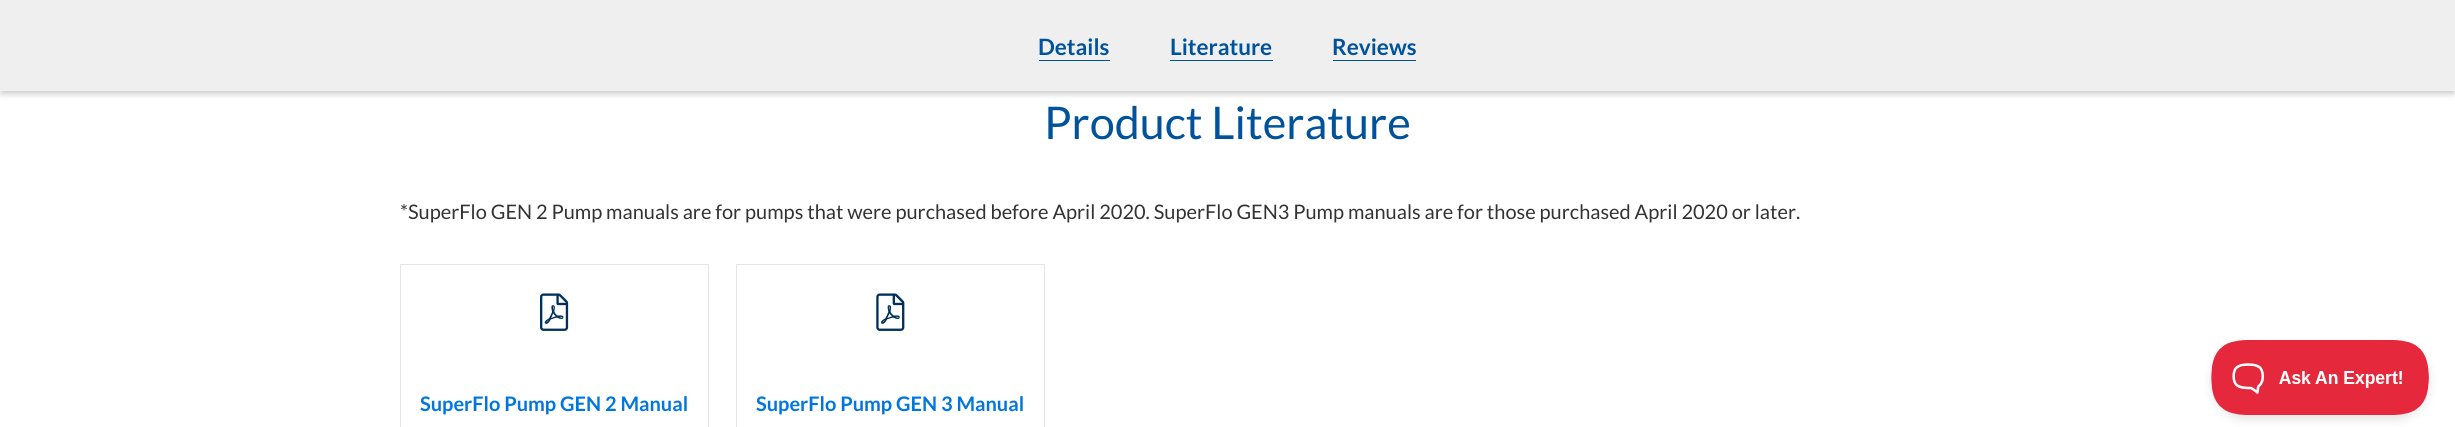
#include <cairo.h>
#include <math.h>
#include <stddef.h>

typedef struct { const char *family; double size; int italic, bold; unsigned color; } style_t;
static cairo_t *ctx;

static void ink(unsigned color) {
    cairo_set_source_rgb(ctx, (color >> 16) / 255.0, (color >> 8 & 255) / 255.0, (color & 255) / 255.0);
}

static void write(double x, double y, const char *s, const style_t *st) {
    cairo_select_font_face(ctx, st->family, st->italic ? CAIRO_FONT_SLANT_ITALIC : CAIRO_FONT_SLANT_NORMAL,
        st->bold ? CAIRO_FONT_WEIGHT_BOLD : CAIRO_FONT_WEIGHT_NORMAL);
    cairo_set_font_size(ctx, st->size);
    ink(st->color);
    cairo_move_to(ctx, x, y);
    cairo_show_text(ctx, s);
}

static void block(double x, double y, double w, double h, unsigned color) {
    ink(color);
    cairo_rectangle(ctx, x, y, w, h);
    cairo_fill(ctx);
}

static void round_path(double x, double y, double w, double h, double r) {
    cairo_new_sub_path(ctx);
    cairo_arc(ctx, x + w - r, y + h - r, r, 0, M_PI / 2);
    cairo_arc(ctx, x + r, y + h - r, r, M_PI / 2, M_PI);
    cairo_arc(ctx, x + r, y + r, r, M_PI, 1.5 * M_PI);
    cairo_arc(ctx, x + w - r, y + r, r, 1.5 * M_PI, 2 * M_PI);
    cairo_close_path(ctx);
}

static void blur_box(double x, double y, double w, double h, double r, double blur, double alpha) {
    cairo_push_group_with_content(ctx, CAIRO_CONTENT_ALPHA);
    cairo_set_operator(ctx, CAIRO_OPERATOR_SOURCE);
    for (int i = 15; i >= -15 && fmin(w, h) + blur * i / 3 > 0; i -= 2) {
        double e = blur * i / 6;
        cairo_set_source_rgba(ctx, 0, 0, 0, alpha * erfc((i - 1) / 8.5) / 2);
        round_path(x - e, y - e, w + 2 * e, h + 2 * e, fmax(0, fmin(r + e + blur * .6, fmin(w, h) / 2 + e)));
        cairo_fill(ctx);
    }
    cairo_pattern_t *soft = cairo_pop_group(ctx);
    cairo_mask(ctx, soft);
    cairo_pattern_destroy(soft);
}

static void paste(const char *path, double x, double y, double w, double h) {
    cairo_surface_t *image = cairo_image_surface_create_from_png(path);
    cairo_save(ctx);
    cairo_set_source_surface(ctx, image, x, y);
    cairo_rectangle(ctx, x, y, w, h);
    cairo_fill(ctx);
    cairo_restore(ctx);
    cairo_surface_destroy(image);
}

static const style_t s1 = {"Lato", 22.5, 0, 1, 0x00529b};
static const style_t s2 = {"Lato", 45, 0, 0, 0x00529b};
static const style_t s3 = {"Lato", 20, 0, 0, 0x333333};
static const style_t s4 = {"Lato", 20, 0, 1, 0x0076de};

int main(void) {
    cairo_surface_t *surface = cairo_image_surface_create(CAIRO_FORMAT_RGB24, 2455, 427);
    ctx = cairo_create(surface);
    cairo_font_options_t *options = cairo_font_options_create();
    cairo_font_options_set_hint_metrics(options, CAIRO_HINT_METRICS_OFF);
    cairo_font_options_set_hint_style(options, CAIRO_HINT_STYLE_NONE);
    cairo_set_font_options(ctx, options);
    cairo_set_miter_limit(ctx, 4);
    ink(0xffffff);
    cairo_paint(ctx);
    ink(0x000000);
    blur_box(1, 5, 2453, 89, 0, 3, 0.2);
    block(0, 0, 2455, 91, 0xefefef);
    write(1038, 55, "Details", &s1);
    block(1039, 60, 71, 1, 0x00529b);
    write(1170, 55, "Literature", &s1);
    block(1170, 60, 103, 1, 0x00529b);
    write(1332, 55, "Reviews", &s1);
    block(1333, 60, 83, 1, 0x00529b);
    write(1044, 139, "Product Literature", &s2);
    write(400, 219, "*SuperFlo GEN 2 Pump manuals are for pumps that were purchased before April 2020. SuperFlo GEN3 Pump manuals are for those purchased April 2020 or later.", &s3);
    cairo_rectangle(ctx, 400.5, 264.5, 308, 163);
    ink(0xe5e5e5);
    cairo_set_line_width(ctx, 1);
    cairo_stroke(ctx);
    paste("pic1.png", 540, 293, 29, 38);
    write(420, 411, "SuperFlo Pump GEN 2 Manual", &s4);
    cairo_rectangle(ctx, 736.5, 264.5, 308, 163);
    ink(0xe5e5e5);
    cairo_stroke(ctx);
    paste("pic2.png", 876, 293, 29, 38);
    write(756, 411, "SuperFlo Pump GEN 3 Manual", &s4);
    ink(0x000000);
    blur_box(2211, 345, 219, 75, 37.5, 4.5, 0.1);
    paste("pic3.png", 2211, 340, 218, 75);
    cairo_surface_write_to_png(surface, "screenshot.png");
    cairo_font_options_destroy(options);
    cairo_destroy(ctx);
    cairo_surface_destroy(surface);
    return 0;
}
